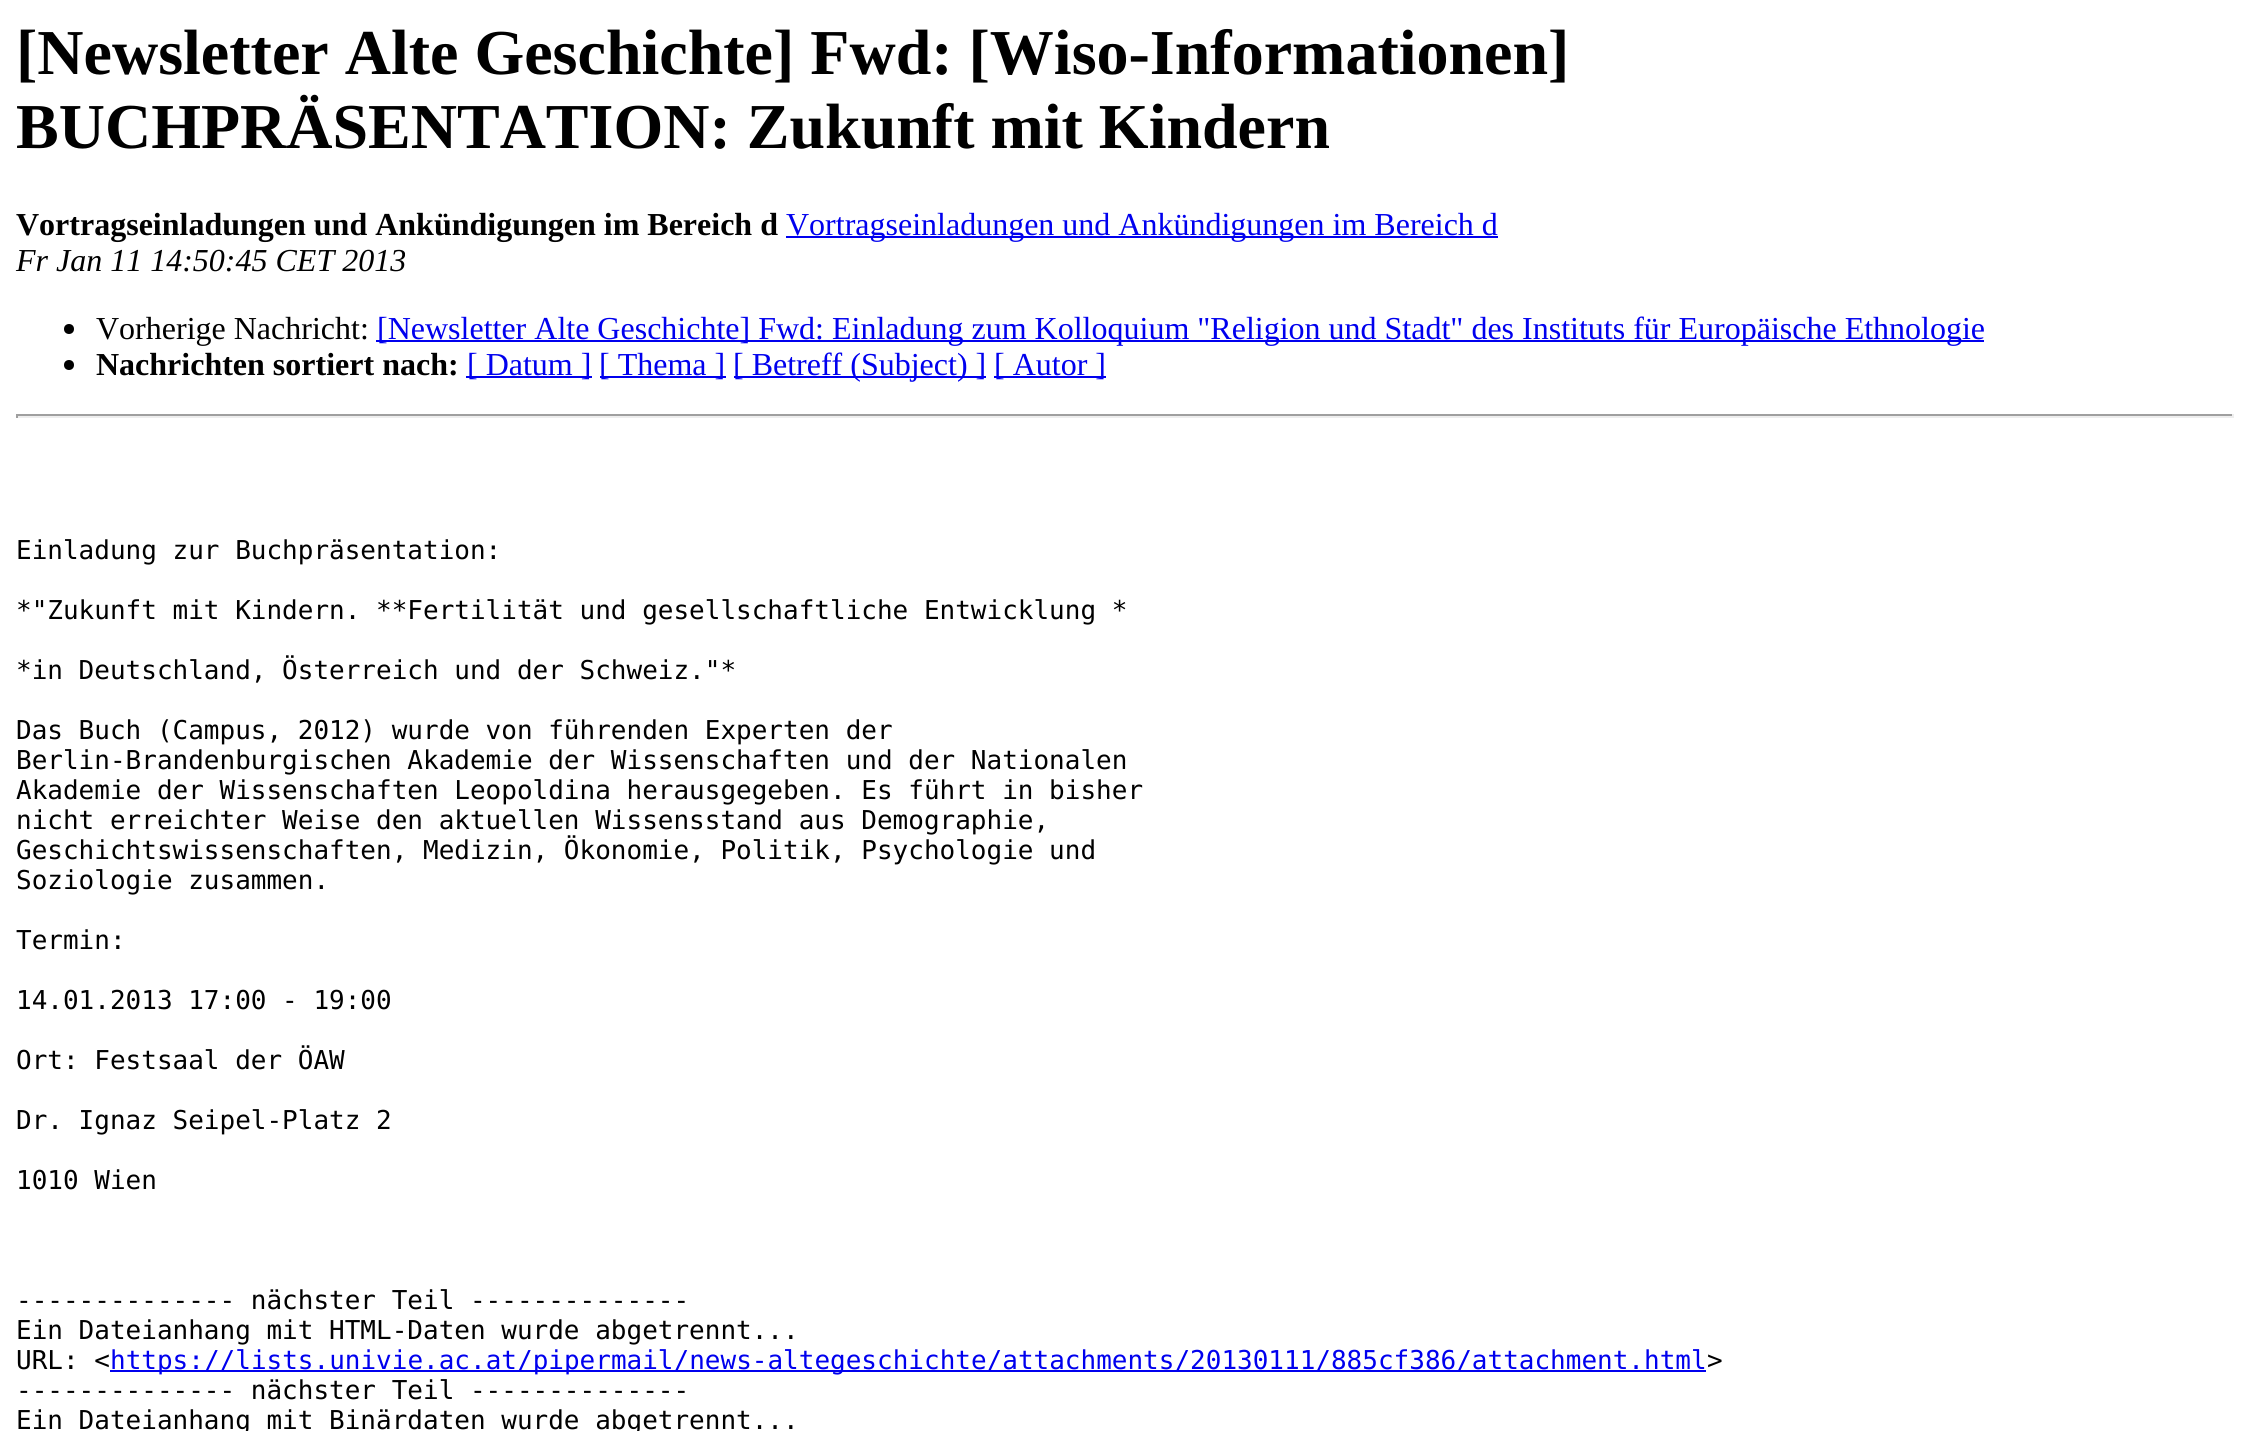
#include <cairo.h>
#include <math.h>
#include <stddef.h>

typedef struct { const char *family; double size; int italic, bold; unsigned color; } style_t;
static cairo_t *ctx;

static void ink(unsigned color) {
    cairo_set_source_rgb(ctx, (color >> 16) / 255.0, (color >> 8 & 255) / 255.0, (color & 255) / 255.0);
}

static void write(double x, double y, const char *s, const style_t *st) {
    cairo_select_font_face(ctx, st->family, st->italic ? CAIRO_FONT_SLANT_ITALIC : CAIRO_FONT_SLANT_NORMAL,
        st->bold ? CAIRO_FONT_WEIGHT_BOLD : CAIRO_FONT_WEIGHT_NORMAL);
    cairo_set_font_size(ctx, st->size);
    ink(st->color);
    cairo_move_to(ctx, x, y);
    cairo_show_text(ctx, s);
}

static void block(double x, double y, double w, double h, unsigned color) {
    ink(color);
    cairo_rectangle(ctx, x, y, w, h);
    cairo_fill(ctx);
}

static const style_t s1 = {"Liberation Serif", 64, 0, 1, 0x000000};
static const style_t s2 = {"Liberation Serif", 32, 0, 1, 0x000000};
static const style_t s3 = {"Liberation Serif", 32, 0, 0, 0x0000ee};
static const style_t s4 = {"Liberation Serif", 32, 1, 0, 0x000000};
static const style_t s5 = {"Liberation Serif", 32, 0, 0, 0x000000};
static const style_t s6 = {"DejaVu Sans Mono", 26, 0, 0, 0x000000};
static const style_t s7 = {"DejaVu Sans Mono", 26, 0, 0, 0x0000ee};

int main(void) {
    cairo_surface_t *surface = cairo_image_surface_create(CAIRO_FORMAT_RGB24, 2250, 1431);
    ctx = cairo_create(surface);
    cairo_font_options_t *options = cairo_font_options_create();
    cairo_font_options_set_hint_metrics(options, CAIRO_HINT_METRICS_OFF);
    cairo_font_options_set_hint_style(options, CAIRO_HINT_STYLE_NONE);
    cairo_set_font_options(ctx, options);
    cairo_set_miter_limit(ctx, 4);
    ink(0xffffff);
    cairo_paint(ctx);
    write(16, 74, "[Newsletter Alte Geschichte] Fwd: [Wiso-Informationen]", &s1);
    write(16, 148, "BUCHPRÄSENTATION: Zukunft mit Kindern", &s1);
    write(16, 235, "Vortragseinladungen und Ankündigungen im Bereich d", &s2);
    block(786, 236, 712, 2, 0x0000ee);
    write(786, 235, "Vortragseinladungen und Ankündigungen im Bereich d", &s3);
    write(16, 271, "Fr Jan 11 14:50:45 CET 2013", &s4);
    cairo_new_path(ctx);
    cairo_arc(ctx, 69, 329, 5, 0, 2 * M_PI);
    cairo_fill(ctx);
    write(96, 339, "Vorherige Nachricht:", &s5);
    block(376, 340, 1608, 2, 0x0000ee);
    write(377, 339, "[Newsletter Alte Geschichte] Fwd: Einladung zum Kolloquium \"Religion und Stadt\" des Instituts für Europäische Ethnologie", &s3);
    ink(0x000000);
    cairo_new_path(ctx);
    cairo_arc(ctx, 69, 365, 5, 0, 2 * M_PI);
    cairo_fill(ctx);
    write(96, 375, "Nachrichten sortiert nach:", &s2);
    block(466, 376, 126, 2, 0x0000ee);
    write(467, 375, "[ Datum ]", &s3);
    block(600, 376, 126, 2, 0x0000ee);
    write(599, 375, "[ Thema ]", &s3);
    block(734, 376, 252, 2, 0x0000ee);
    write(733, 375, "[ Betreff (Subject) ]", &s3);
    block(994, 376, 112, 2, 0x0000ee);
    write(994, 375, "[ Autor ]", &s3);
    block(16, 414, 2218, 2, 0x9f9f9f);
    block(2232, 414, 2, 4, 0xeeeeee);
    block(16, 416, 2218, 2, 0xeeeeee);
    block(16, 414, 2, 4, 0x9f9f9f);
    write(16, 559, "Einladung zur Buchpräsentation:", &s6);
    write(16, 619, "*\"Zukunft mit Kindern. **Fertilität und gesellschaftliche Entwicklung *", &s6);
    write(16, 679, "*in Deutschland, Österreich und der Schweiz.\"*", &s6);
    write(16, 739, "Das Buch (Campus, 2012) wurde von führenden Experten der", &s6);
    write(16, 769, "Berlin-Brandenburgischen Akademie der Wissenschaften und der Nationalen", &s6);
    write(16, 799, "Akademie der Wissenschaften Leopoldina herausgegeben. Es führt in bisher", &s6);
    write(16, 829, "nicht erreichter Weise den aktuellen Wissensstand aus Demographie,", &s6);
    write(16, 859, "Geschichtswissenschaften, Medizin, Ökonomie, Politik, Psychologie und", &s6);
    write(16, 889, "Soziologie zusammen.", &s6);
    write(16, 949, "Termin:", &s6);
    write(16, 1009, "14.01.2013 17:00 - 19:00", &s6);
    write(16, 1069, "Ort: Festsaal der ÖAW", &s6);
    write(16, 1129, "Dr. Ignaz Seipel-Platz 2", &s6);
    write(16, 1189, "1010 Wien", &s6);
    write(16, 1309, "-------------- nächster Teil --------------", &s6);
    write(16, 1339, "Ein Dateianhang mit HTML-Daten wurde abgetrennt...", &s6);
    write(16, 1369, "URL: <", &s6);
    block(110, 1370, 1596, 2, 0x0000ee);
    write(110, 1369, "https://lists.univie.ac.at/pipermail/news-altegeschichte/attachments/20130111/885cf386/attachment.html", &s7);
    write(1707, 1369, ">", &s6);
    write(16, 1399, "-------------- nächster Teil --------------", &s6);
    write(16, 1429, "Ein Dateianhang mit Binärdaten wurde abgetrennt...", &s6);
    cairo_surface_write_to_png(surface, "screenshot.png");
    cairo_font_options_destroy(options);
    cairo_destroy(ctx);
    cairo_surface_destroy(surface);
    return 0;
}
